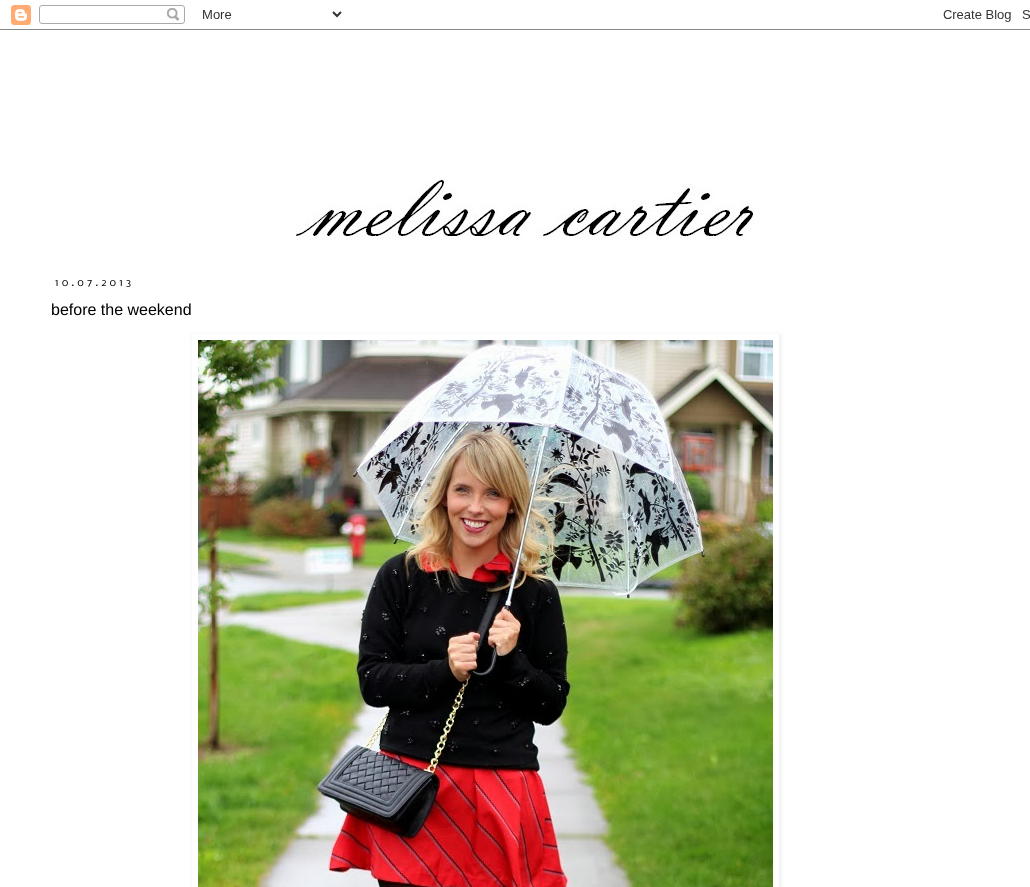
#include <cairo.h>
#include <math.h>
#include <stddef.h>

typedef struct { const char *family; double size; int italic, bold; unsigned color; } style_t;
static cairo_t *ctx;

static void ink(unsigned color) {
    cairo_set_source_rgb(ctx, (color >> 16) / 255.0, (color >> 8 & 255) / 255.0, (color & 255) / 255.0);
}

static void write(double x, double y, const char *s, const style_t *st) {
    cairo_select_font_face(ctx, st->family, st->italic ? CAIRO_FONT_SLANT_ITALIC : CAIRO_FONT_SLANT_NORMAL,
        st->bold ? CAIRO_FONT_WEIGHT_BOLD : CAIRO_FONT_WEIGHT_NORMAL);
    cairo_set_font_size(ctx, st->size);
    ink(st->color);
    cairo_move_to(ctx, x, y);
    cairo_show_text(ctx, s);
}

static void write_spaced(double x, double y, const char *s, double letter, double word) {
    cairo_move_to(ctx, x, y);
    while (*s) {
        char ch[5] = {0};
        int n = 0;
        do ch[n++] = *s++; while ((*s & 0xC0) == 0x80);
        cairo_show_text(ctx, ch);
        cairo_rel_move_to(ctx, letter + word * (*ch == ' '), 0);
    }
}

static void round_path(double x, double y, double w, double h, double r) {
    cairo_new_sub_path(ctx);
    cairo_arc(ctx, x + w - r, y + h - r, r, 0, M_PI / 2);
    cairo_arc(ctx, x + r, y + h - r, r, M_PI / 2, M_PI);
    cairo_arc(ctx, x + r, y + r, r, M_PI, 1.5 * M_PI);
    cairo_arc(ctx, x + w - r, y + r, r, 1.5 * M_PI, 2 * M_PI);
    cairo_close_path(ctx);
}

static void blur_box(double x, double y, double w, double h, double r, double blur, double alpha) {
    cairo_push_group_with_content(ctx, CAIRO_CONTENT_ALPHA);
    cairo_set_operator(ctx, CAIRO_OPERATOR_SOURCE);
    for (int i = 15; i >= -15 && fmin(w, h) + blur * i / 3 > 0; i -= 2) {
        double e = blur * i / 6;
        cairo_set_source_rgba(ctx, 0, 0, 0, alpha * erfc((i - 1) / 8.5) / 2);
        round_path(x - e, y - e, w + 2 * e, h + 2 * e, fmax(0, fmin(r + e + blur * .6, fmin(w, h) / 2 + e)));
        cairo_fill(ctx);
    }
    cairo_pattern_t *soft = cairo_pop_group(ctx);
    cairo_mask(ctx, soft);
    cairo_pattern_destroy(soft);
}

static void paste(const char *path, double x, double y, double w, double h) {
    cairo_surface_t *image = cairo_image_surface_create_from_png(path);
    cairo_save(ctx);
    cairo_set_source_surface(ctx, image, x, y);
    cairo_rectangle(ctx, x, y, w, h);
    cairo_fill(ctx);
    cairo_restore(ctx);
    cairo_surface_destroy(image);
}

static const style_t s1 = {"Liberation Sans", 16, 0, 0, 0x000000};

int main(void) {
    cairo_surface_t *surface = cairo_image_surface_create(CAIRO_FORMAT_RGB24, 1030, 887);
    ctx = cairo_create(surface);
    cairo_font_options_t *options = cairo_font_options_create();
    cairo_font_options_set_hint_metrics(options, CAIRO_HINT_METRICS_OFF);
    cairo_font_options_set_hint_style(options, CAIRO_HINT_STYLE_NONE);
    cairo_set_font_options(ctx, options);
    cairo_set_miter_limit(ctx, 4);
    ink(0xffffff);
    cairo_paint(ctx);
    paste("pic1.png", 0, 5, 1030, 25);
    paste("pic2.png", 296, 176, 463, 64);
    cairo_select_font_face(ctx, "Nobile", CAIRO_FONT_SLANT_NORMAL, CAIRO_FONT_WEIGHT_NORMAL);
    cairo_set_font_size(ctx, 10);
    ink(0x000000);
    write_spaced(55, 286, "10.07.2013", 3, 0);
    write(51, 315, "before the weekend", &s1);
    cairo_save(ctx);
    cairo_set_fill_rule(ctx, CAIRO_FILL_RULE_EVEN_ODD);
    cairo_new_path(ctx);
    cairo_move_to(ctx, 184, 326);
    cairo_line_to(ctx, 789, 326);
    cairo_line_to(ctx, 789, 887);
    cairo_line_to(ctx, 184, 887);
    cairo_close_path(ctx);
    cairo_move_to(ctx, 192, 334);
    cairo_line_to(ctx, 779, 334);
    cairo_line_to(ctx, 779, 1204);
    cairo_line_to(ctx, 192, 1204);
    cairo_close_path(ctx);
    cairo_clip(ctx);
    ink(0x000000);
    blur_box(193, 335, 587, 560, 0, 2.5, 0.1);
    cairo_restore(ctx);
    paste("pic3.png", 198, 340, 575, 547);
    cairo_surface_write_to_png(surface, "screenshot.png");
    cairo_font_options_destroy(options);
    cairo_destroy(ctx);
    cairo_surface_destroy(surface);
    return 0;
}
